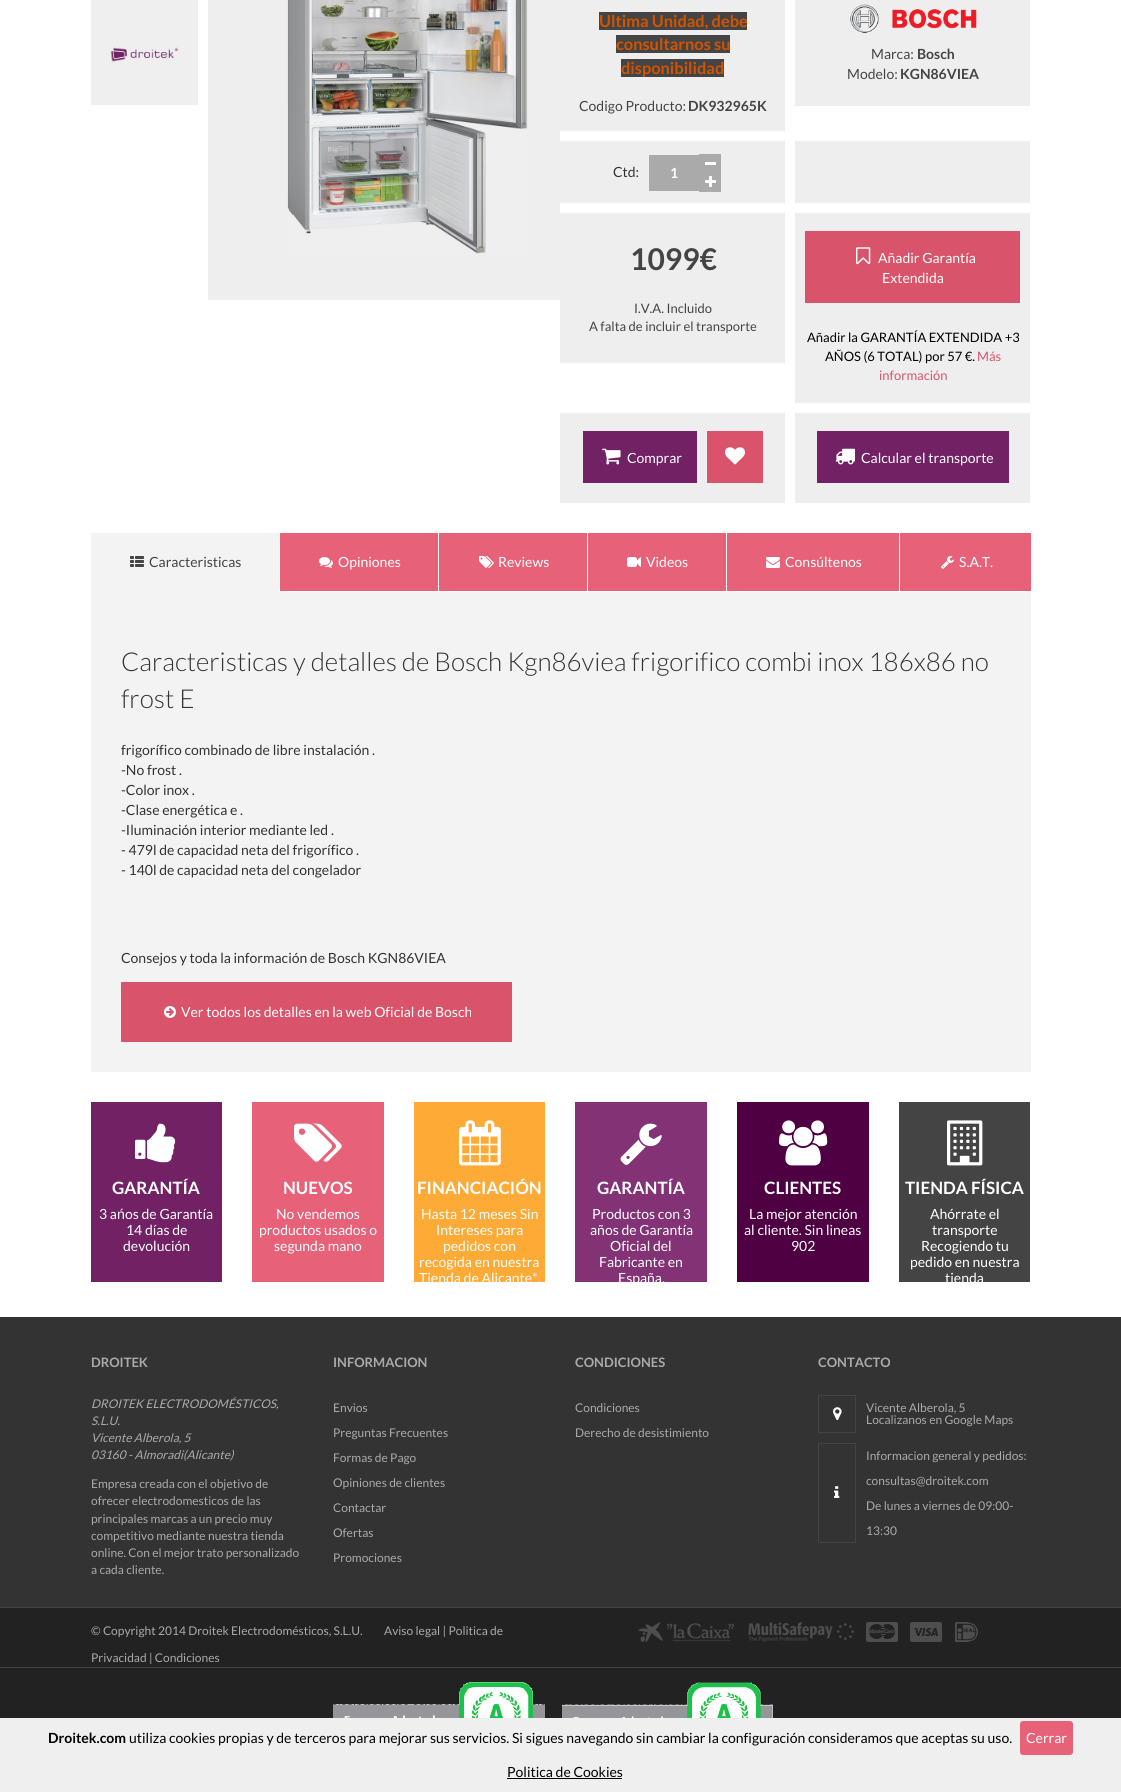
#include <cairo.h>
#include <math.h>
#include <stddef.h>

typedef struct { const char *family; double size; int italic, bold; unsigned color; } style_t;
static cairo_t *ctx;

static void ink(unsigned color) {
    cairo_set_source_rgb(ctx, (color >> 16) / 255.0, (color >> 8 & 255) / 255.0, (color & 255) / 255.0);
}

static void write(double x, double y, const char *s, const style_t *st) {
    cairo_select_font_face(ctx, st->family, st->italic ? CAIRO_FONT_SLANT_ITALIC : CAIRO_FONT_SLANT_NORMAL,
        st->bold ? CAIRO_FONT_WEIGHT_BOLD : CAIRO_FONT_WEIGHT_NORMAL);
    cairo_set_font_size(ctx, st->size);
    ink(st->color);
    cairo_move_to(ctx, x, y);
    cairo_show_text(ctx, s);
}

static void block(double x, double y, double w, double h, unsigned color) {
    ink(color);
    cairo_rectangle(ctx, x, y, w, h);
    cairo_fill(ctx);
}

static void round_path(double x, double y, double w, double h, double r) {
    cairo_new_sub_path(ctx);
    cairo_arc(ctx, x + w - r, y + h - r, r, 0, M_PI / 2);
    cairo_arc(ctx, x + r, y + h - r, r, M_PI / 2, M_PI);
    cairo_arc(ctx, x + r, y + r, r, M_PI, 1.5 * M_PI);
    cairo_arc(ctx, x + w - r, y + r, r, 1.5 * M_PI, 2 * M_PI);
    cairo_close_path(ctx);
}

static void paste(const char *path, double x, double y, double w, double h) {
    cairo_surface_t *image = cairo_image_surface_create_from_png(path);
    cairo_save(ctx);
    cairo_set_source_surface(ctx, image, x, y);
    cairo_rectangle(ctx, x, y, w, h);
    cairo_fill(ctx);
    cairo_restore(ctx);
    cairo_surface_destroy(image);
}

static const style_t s1 = {"Lato", 16.4, 0, 1, 0xd35400};
static const style_t s2 = {"Lato", 14, 0, 0, 0x444444};
static const style_t s3 = {"Lato", 14, 0, 1, 0x444444};
static const style_t s4 = {"Lato", 14, 0, 0, 0x333333};
static const style_t s5 = {"Lato", 14, 0, 1, 0xffffff};
static const style_t s6 = {"Lato", 30, 0, 1, 0x444444};
static const style_t s7 = {"Lato", 13, 0, 0, 0x444444};
static const style_t s8 = {"Lato", 14, 0, 0, 0xffffff};
static const style_t s9 = {"Lato", 13, 0, 0, 0x000000};
static const style_t s10 = {"Lato", 13, 0, 0, 0xd9546a};
static const style_t s11 = {"Lato Light", 26, 0, 0, 0x333333};
static const style_t s12 = {"Lato", 17, 0, 1, 0xffffff};
static const style_t s13 = {"Liberation Sans", 14, 0, 0, 0xffffff};
static const style_t s14 = {"Lato", 13, 0, 1, 0xaaaaaa};
static const style_t s15 = {"Lato", 12, 1, 0, 0xaaaaaa};
static const style_t s16 = {"Lato", 12, 0, 0, 0xaaaaaa};
static const style_t s17 = {"Lato", 14, 0, 1, 0x000000};
static const style_t s18 = {"Lato", 14, 0, 0, 0x000000};

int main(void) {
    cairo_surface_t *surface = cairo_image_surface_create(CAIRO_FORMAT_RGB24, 1121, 1792);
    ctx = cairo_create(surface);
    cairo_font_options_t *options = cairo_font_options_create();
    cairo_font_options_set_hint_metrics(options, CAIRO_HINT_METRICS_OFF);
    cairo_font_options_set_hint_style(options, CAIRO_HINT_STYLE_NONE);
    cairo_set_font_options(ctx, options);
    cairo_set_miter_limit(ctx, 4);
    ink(0xffffff);
    cairo_paint(ctx);
    paste("pic1.png", 91, 0, 107, 105);
    block(208, 0, 352, 300, 0xeeeeee);
    paste("pic2.png", 287, 0, 241, 254);
    block(560, 0, 225, 131, 0xeeeeee);
    block(599, 12, 148, 18, 0x444444);
    write(599, 27, "Ultima Unidad, debe", &s1);
    block(616, 35, 114, 18, 0x444444);
    write(616, 50, "consultarnos su", &s1);
    block(621, 59, 103, 18, 0x444444);
    write(621, 74, "disponibilidad", &s1);
    write(579, 111, "Codigo Producto:", &s2);
    write(688, 111, "DK932965K", &s3);
    block(795, 0, 235, 106, 0xeeeeee);
    paste("pic3.png", 850, 4, 127, 29);
    write(871, 59, "Marca:", &s2);
    write(917, 59, "Bosch", &s3);
    write(847, 79, "Modelo:", &s2);
    write(900, 79, "KGN86VIEA", &s3);
    block(560, 141, 225, 62, 0xeeeeee);
    write(613, 177, "Ctd:", &s4);
    block(649, 155, 50, 36, 0xaaaaaa);
    write(670, 178, "1", &s5);
    block(699, 154, 22, 38, 0xaaaaaa);
    block(705, 162, 11, 3, 0xffffff);
    paste("pic4.png", 705, 176, 11, 11);
    block(795, 141, 235, 62, 0xeeeeee);
    block(560, 213, 225, 150, 0xeeeeee);
    write(630, 270, "1099€", &s6);
    write(634, 313, "I.V.A. Incluido", &s7);
    write(589, 331, "A falta de incluir el transporte", &s7);
    block(795, 213, 235, 190, 0xeeeeee);
    block(805, 231, 215, 72, 0xd9546a);
    paste("pic5.png", 856, 247, 15, 18);
    write(878, 263, "Añadir Garantía", &s8);
    write(882, 283, "Extendida", &s8);
    write(807, 342, "Añadir la GARANTÍA EXTENDIDA +3", &s9);
    write(825, 361, "AÑOS (6 TOTAL) por 57 €.", &s9);
    write(977, 361, "Más", &s10);
    write(879, 380, "información", &s10);
    block(560, 413, 225, 90, 0xeeeeee);
    block(583, 431, 114, 52, 0x712164);
    paste("pic6.png", 602, 448, 19, 17);
    write(627, 463, "Comprar", &s8);
    block(707, 431, 56, 52, 0xd9546a);
    paste("pic7.png", 725, 447, 20, 18);
    block(795, 413, 235, 90, 0xeeeeee);
    block(817, 431, 192, 52, 0x712164);
    paste("pic8.png", 835, 448, 20, 17);
    write(861, 463, "Calcular el transporte", &s8);
    block(91, 533, 189, 59, 0xf3f3f3);
    block(279, 533, 1, 58, 0xffffff);
    paste("pic9.png", 130, 556, 14, 11);
    write(149, 567, "Caracteristicas", &s2);
    block(280, 533, 158, 58, 0xe76278);
    paste("pic10.png", 319, 557, 14, 11);
    write(338, 567, "Opiniones", &s8);
    block(439, 533, 148, 58, 0xe76278);
    paste("pic11.png", 479, 556, 15, 12);
    write(498, 567, "Reviews", &s8);
    block(588, 533, 138, 58, 0xe76278);
    paste("pic12.png", 627, 557, 14, 10);
    write(646, 567, "Videos", &s8);
    block(727, 533, 172, 58, 0xe76278);
    paste("pic13.png", 766, 557, 14, 11);
    write(785, 567, "Consúltenos", &s8);
    block(900, 533, 131, 58, 0xe76278);
    paste("pic14.png", 941, 556, 13, 13);
    write(959, 567, "S.A.T.", &s8);
    block(91, 592, 940, 480, 0xf3f3f3);
    write(121, 671, "Caracteristicas y detalles de Bosch Kgn86viea frigorifico combi inox 186x86 no", &s11);
    write(121, 708, "frost E", &s11);
    write(121, 755, "frigorífico combinado de libre instalación .", &s4);
    write(121, 775, "-No frost .", &s4);
    write(121, 795, "-Color inox .", &s4);
    write(121, 815, "-Clase energética e .", &s4);
    write(121, 835, "-Iluminación interior mediante led .", &s4);
    write(121, 855, "- 479l de capacidad neta del frigorífico .", &s4);
    write(121, 875, "- 140l de capacidad neta del congelador", &s4);
    write(121, 963, "Consejos y toda la información de Bosch KGN86VIEA", &s4);
    block(121, 982, 391, 60, 0xd9546a);
    paste("pic15.png", 164, 1006, 12, 12);
    write(181, 1017, "Ver todos los detalles en la web Oficial de Bosch", &s8);
    block(91, 1102, 131, 180, 0x712164);
    paste("pic16.png", 135, 1123, 41, 40);
    write(112, 1194, "GARANTÍA", &s12);
    write(99, 1219, "3 a", &s8);
    write(117, 1219, "ń", &s13);
    write(125, 1219, "os de Garantía", &s8);
    write(126, 1235, "14 días de", &s8);
    write(123, 1251, "devolución", &s8);
    block(252, 1102, 132, 180, 0xe76278);
    paste("pic17.png", 294, 1123, 48, 39);
    write(283, 1194, "NUEVOS", &s12);
    write(276, 1219, "No vendemos", &s8);
    write(259, 1235, "productos usados o", &s8);
    write(274, 1251, "segunda mano", &s8);
    block(414, 1102, 131, 180, 0xfeaa37);
    paste("pic18.png", 459, 1120, 42, 46);
    write(417, 1194, "FINANCIACIÓN", &s12);
    write(421, 1219, "Hasta 12 meses Sin", &s8);
    write(436, 1235, "Intereses para", &s8);
    write(443, 1251, "pedidos con", &s8);
    write(419, 1267, "recogida en nuestra", &s8);
    cairo_save(ctx);
    cairo_rectangle(ctx, 414, 1102, 131, 180);
    cairo_clip(ctx);
    write(419, 1283, "Tienda de Alicante*.", &s8);
    cairo_restore(ctx);
    block(575, 1102, 132, 180, 0x823275);
    paste("pic19.png", 620, 1123, 42, 42);
    write(597, 1194, "GARANTÍA", &s12);
    write(592, 1219, "Productos con 3", &s8);
    write(590, 1235, "años de Garantía", &s8);
    write(610, 1251, "Oficial del", &s8);
    write(599, 1267, "Fabricante en", &s8);
    cairo_save(ctx);
    cairo_rectangle(ctx, 575, 1102, 132, 180);
    cairo_clip(ctx);
    write(618, 1283, "España.", &s8);
    cairo_restore(ctx);
    block(737, 1102, 132, 180, 0x4f0042);
    paste("pic20.png", 779, 1120, 49, 46);
    write(764, 1194, "CLIENTES", &s12);
    write(749, 1219, "La mejor atención", &s8);
    write(744, 1235, "al cliente. Sin lineas", &s8);
    write(791, 1251, "902", &s8);
    block(899, 1102, 131, 180, 0x444444);
    paste("pic21.png", 947, 1120, 36, 46);
    write(905, 1194, "TIENDA FÍSICA", &s12);
    write(930, 1219, "Ahórrate el", &s8);
    write(932, 1235, "transporte", &s8);
    write(921, 1251, "Recogiendo tu", &s8);
    write(910, 1267, "pedido en nuestra", &s8);
    cairo_save(ctx);
    cairo_rectangle(ctx, 899, 1102, 131, 180);
    cairo_clip(ctx);
    write(945, 1283, "tienda", &s8);
    cairo_restore(ctx);
    block(0, 1317, 1121, 290, 0x333333);
    write(91, 1367, "DROITEK", &s14);
    write(91, 1408, "DROITEK ELECTRODOMÉSTICOS,", &s15);
    write(91, 1425, "S.L.U.", &s15);
    write(91, 1442, "Vicente Alberola, 5", &s15);
    write(91, 1459, "03160 - Almoradi(Alicante)", &s15);
    write(91, 1488, "Empresa creada con el objetivo de", &s16);
    write(91, 1505, "ofrecer electrodomesticos de las", &s16);
    write(91, 1523, "principales marcas a un precio muy", &s16);
    write(91, 1540, "competitivo mediante nuestra tienda", &s16);
    write(91, 1557, "online. Con el mejor trato personalizado", &s16);
    write(91, 1574, "a cada cliente.", &s16);
    write(333, 1367, "INFORMACION", &s14);
    write(333, 1412, "Envios", &s16);
    write(333, 1437, "Preguntas Frecuentes", &s16);
    write(333, 1462, "Formas de Pago", &s16);
    write(333, 1487, "Opiniones de clientes", &s16);
    write(333, 1512, "Contactar", &s16);
    write(333, 1537, "Ofertas", &s16);
    write(333, 1562, "Promociones", &s16);
    write(575, 1367, "CONDICIONES", &s14);
    write(575, 1412, "Condiciones", &s16);
    write(575, 1437, "Derecho de desistimiento", &s16);
    write(818, 1367, "CONTACTO", &s14);
    cairo_rectangle(ctx, 818.5, 1395.5, 37, 37);
    ink(0x444444);
    cairo_set_line_width(ctx, 1);
    cairo_stroke(ctx);
    paste("pic22.png", 833, 1407, 9, 13);
    write(866, 1412, "Vicente Alberola, 5", &s16);
    write(866, 1424, "Localizanos en Google Maps", &s16);
    cairo_rectangle(ctx, 818.5, 1443.5, 37, 99);
    ink(0x444444);
    cairo_stroke(ctx);
    paste("pic23.png", 834, 1486, 6, 12);
    write(866, 1460, "Informacion general y pedidos:", &s16);
    write(866, 1485, "consultas@droitek.com", &s16);
    write(866, 1510, "De lunes a viernes de 09:00-", &s16);
    write(866, 1535, "13:30", &s16);
    block(0, 1608, 1121, 59, 0x222222);
    block(0, 1607, 1121, 1, 0x444444);
    write(91, 1635, "© Copyright 2014 Droitek Electrodomésticos, S.L.U.", &s16);
    write(384, 1635, "Aviso legal | Politica de", &s16);
    write(91, 1662, "Privacidad | Condiciones", &s16);
    paste("pic24.png", 638, 1622, 96, 20);
    paste("pic25.png", 748, 1622, 106, 20);
    paste("pic26.png", 866, 1622, 32, 20);
    paste("pic27.png", 910, 1622, 32, 20);
    paste("pic28.png", 955, 1622, 23, 20);
    block(0, 1668, 1121, 50, 0x222222);
    block(0, 1667, 1121, 1, 0x444444);
    paste("pic29.png", 333, 1682, 212, 36);
    paste("pic30.png", 562, 1682, 211, 36);
    block(0, 1718, 1121, 74, 0xefefef);
    write(48, 1743, "Droitek.com", &s17);
    write(129, 1743, "utiliza cookies propias y de terceros para mejorar sus servicios. Si sigues navegando sin cambiar la configuración consideramos que aceptas su uso.", &s18);
    ink(0xe76278);
    round_path(1020, 1721, 53, 34, 3);
    cairo_fill(ctx);
    write(1026, 1743, "Cerrar", &s8);
    write(507, 1777, "Politica de Cookies", &s18);
    block(507, 1778, 115, 1, 0x000000);
    cairo_surface_write_to_png(surface, "screenshot.png");
    cairo_font_options_destroy(options);
    cairo_destroy(ctx);
    cairo_surface_destroy(surface);
    return 0;
}
